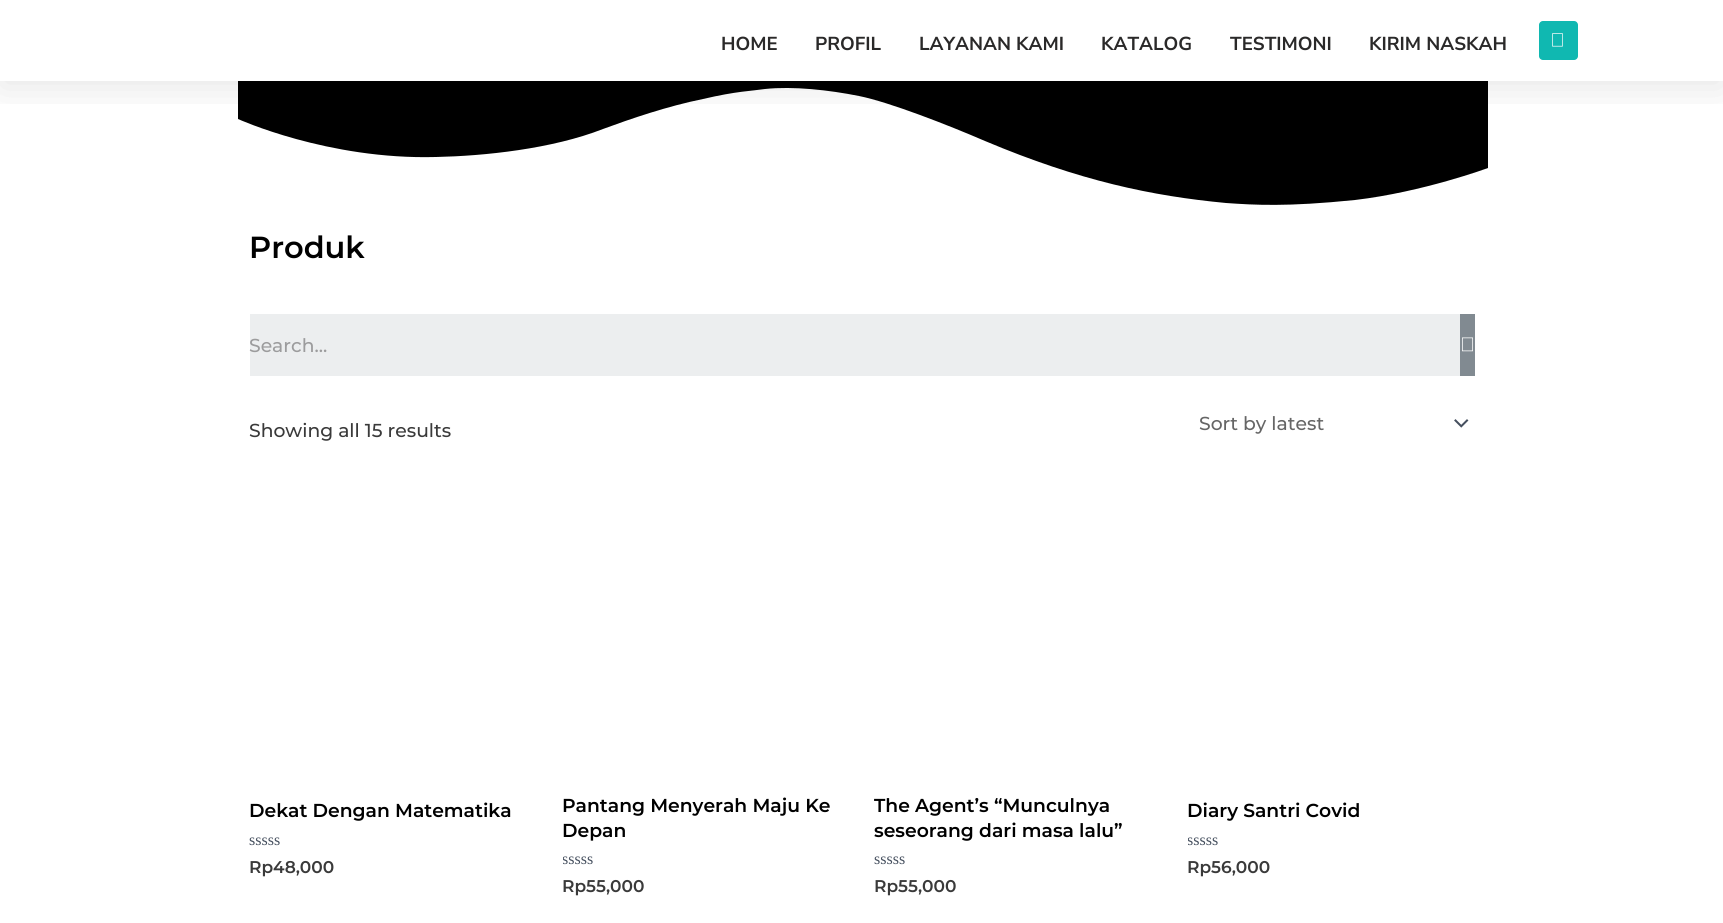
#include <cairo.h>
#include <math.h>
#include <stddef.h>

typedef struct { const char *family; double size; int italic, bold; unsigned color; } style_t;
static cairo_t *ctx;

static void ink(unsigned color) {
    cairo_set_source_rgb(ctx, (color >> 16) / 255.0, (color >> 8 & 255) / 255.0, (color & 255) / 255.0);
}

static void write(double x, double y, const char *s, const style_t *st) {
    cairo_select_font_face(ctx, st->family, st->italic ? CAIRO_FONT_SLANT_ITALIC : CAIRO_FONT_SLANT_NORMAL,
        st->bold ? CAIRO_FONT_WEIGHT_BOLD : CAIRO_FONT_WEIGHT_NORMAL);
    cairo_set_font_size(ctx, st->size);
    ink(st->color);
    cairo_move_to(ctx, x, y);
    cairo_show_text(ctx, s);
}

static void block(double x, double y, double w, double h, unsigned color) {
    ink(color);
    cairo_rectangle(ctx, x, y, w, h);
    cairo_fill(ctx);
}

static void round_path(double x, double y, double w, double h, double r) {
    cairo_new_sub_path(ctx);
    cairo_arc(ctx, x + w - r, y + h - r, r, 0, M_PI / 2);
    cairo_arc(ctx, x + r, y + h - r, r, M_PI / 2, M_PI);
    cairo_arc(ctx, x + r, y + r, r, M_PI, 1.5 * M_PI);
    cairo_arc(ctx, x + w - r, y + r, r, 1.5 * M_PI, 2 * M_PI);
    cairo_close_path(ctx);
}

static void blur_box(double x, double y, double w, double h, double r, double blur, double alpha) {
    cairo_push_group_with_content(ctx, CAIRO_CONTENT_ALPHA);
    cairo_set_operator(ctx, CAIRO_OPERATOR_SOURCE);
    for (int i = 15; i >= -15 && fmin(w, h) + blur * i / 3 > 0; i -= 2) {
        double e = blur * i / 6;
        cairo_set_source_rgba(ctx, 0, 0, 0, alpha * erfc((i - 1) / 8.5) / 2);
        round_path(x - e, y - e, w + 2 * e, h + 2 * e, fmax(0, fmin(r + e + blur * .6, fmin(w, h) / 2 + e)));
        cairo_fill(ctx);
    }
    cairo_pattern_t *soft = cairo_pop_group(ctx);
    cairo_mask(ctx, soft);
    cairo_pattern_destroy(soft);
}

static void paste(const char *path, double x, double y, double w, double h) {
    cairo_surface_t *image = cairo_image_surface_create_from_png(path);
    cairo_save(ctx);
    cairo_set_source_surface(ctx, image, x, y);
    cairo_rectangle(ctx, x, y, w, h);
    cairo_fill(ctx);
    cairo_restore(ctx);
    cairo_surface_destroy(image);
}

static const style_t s1 = {"Nunito Sans", 18.75, 0, 1, 0x2a2929};
static const style_t s2 = {"Montserrat SemiBold", 30.5, 0, 0, 0x000000};
static const style_t s3 = {"Montserrat Medium", 18.75, 0, 0, 0x9c9c9d};
static const style_t s4 = {"Montserrat Medium", 18.75, 0, 0, 0x3a3a3a};
static const style_t s5 = {"Montserrat Medium", 18.75, 0, 0, 0x666666};
static const style_t s6 = {"Montserrat SemiBold", 18.75, 0, 0, 0x000000};
static const style_t s7 = {"Liberation Serif", 16, 0, 0, 0x454f5e};
static const style_t s8 = {"Montserrat SemiBold", 17, 0, 0, 0x3a3a3a};

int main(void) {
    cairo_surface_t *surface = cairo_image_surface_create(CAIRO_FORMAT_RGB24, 1723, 923);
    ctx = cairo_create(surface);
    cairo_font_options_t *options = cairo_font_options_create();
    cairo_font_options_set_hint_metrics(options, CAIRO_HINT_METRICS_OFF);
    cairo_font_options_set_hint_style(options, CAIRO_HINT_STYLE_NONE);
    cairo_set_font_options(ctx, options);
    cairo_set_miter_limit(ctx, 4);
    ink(0xffffff);
    cairo_paint(ctx);
    ink(0x000000);
    cairo_new_path(ctx);
    cairo_move_to(ctx, 765, 89);
    cairo_curve_to(ctx, 793, 86, 829, 90, 859, 96);
    cairo_curve_to(ctx, 889, 102, 948, 125, 985, 141);
    cairo_curve_to(ctx, 1080, 181, 1152, 196, 1226, 203);
    cairo_curve_to(ctx, 1255, 205, 1286, 207, 1355, 200);
    cairo_curve_to(ctx, 1423, 192, 1488, 168, 1488, 168);
    cairo_line_to(ctx, 1488, 81);
    cairo_line_to(ctx, 238, 81);
    cairo_line_to(ctx, 238, 119);
    cairo_curve_to(ctx, 238, 119, 328, 160, 436, 157);
    cairo_curve_to(ctx, 484, 156, 552, 149, 603, 129);
    cairo_curve_to(ctx, 630, 119, 668, 106, 703, 99);
    cairo_curve_to(ctx, 737, 91, 752, 91, 765, 89);
    cairo_close_path(ctx);
    cairo_fill(ctx);
    cairo_save(ctx);
    cairo_rectangle(ctx, 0, 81, 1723, 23);
    cairo_clip(ctx);
    ink(0x000000);
    blur_box(0, 6, 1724, 82, 0, 19, 0.1);
    cairo_restore(ctx);
    write(721, 50, "HOME", &s1);
    write(815, 50, "PROFIL", &s1);
    write(919, 50, "LAYANAN KAMI", &s1);
    write(1101, 50, "KATALOG", &s1);
    write(1230, 50, "TESTIMONI", &s1);
    write(1369, 50, "KIRIM NASKAH", &s1);
    ink(0x10b8b1);
    round_path(1539, 21, 39, 39, 4);
    cairo_fill(ctx);
    paste("pic1.png", 1552, 33, 11, 14);
    write(249, 258, "Produk", &s2);
    block(250, 314, 1210, 62, 0xeceeef);
    write(249, 352, "Search...", &s3);
    block(1460, 314, 15, 62, 0x818a91);
    paste("pic2.png", 1462, 337, 11, 15);
    write(249, 437, "Showing all 15 results", &s4);
    paste("pic3.png", 1454, 419, 15, 9);
    write(1199, 430, "Sort by latest", &s5);
    write(249, 817, "Dekat Dengan Matematika", &s6);
    write(249, 845, "sssss", &s7);
    write(249, 873, "Rp48,000", &s8);
    write(562, 812, "Pantang Menyerah Maju Ke", &s6);
    write(562, 837, "Depan", &s6);
    cairo_save(ctx);
    cairo_rectangle(ctx, 563, 851, 86, 17);
    cairo_clip(ctx);
    write(562, 864, "sssss", &s7);
    cairo_restore(ctx);
    write(562, 892, "Rp55,000", &s8);
    write(874, 812, "The Agent’s “Munculnya", &s6);
    write(874, 837, "seseorang dari masa lalu”", &s6);
    write(874, 864, "sssss", &s7);
    write(874, 892, "Rp55,000", &s8);
    write(1187, 817, "Diary Santri Covid", &s6);
    cairo_save(ctx);
    cairo_rectangle(ctx, 1188, 833, 86, 16);
    cairo_clip(ctx);
    write(1187, 845, "sssss", &s7);
    cairo_restore(ctx);
    write(1187, 873, "Rp56,000", &s8);
    cairo_surface_write_to_png(surface, "screenshot.png");
    cairo_font_options_destroy(options);
    cairo_destroy(ctx);
    cairo_surface_destroy(surface);
    return 0;
}
